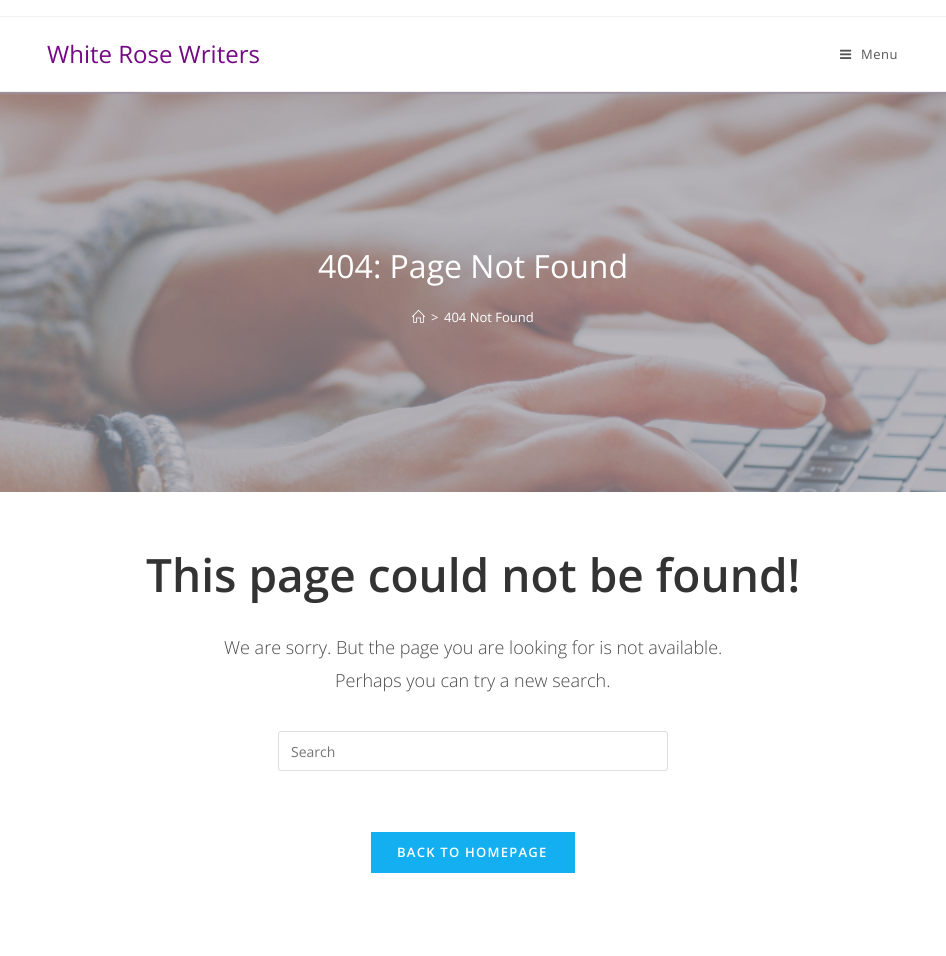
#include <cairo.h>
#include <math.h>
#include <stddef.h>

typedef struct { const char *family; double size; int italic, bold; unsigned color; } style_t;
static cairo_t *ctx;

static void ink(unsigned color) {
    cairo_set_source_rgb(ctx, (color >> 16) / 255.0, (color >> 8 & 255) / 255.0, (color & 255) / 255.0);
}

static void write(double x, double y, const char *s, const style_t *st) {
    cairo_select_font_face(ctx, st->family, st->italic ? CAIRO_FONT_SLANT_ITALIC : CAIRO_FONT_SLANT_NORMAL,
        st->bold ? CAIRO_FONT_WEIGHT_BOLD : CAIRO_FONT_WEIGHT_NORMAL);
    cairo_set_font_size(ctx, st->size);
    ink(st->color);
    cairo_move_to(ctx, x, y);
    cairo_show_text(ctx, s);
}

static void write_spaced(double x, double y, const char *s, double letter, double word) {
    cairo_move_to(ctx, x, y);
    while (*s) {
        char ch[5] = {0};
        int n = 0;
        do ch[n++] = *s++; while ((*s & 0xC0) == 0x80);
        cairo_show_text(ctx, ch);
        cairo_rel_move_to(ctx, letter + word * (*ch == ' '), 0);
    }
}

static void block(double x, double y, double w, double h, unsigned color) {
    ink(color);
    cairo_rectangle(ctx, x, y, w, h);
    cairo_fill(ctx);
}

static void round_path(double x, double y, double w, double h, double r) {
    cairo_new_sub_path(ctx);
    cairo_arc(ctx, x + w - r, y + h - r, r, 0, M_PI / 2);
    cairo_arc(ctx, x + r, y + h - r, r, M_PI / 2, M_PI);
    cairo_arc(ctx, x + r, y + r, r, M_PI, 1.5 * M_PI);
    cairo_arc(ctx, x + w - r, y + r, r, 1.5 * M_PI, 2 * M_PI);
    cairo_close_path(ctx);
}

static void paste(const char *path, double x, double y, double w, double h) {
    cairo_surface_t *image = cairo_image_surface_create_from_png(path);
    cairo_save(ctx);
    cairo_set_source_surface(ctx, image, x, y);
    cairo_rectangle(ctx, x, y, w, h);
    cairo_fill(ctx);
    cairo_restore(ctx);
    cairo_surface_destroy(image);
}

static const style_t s1 = {"Open Sans", 24, 0, 0, 0x740a84};
static const style_t s2 = {"Open Sans", 32, 0, 0, 0xffffff};
static const style_t s3 = {"Open Sans", 13, 0, 0, 0xffffff};
static const style_t s4 = {"Open Sans SemiBold", 46, 0, 0, 0x333333};
static const style_t s5 = {"Open Sans Light", 18, 0, 0, 0x4a4a4a};
static const style_t s6 = {"Open Sans", 14, 0, 0, 0x757575};

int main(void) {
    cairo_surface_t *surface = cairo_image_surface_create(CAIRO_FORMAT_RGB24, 946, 956);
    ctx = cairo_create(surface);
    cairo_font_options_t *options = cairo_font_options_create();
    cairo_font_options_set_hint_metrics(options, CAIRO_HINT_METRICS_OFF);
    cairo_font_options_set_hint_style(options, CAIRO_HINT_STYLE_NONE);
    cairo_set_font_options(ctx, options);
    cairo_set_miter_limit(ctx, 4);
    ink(0xffffff);
    cairo_paint(ctx);
    block(0, 16, 946, 1, 0xf1f1f1);
    block(0, 91, 946, 1, 0xf1f1f1);
    write(47, 63, "White Rose Writers", &s1);
    paste("pic1.png", 840, 49, 12, 10);
    cairo_set_font_size(ctx, 13);
    ink(0x555555);
    write_spaced(861, 59, "Menu", 0.5, 0);
    paste("pic2.png", 0, 92, 946, 400);
    write(318, 278, "404: Page Not Found", &s2);
    paste("pic3.png", 412, 309, 13, 14);
    write(431, 322, ">", &s3);
    write(444, 322, "404 Not Found", &s3);
    write(146, 592, "This page could not be found!", &s4);
    write(224, 654, "We are sorry. But the page you are looking for is not available.", &s5);
    write(335, 687, "Perhaps you can try a new search.", &s5);
    round_path(278.5, 731.5, 389, 39, 2.5);
    ink(0xdddddd);
    cairo_set_line_width(ctx, 1);
    cairo_stroke(ctx);
    write(291, 757, "Search", &s6);
    block(371, 832, 204, 41, 0x13aff0);
    cairo_select_font_face(ctx, "Open Sans SemiBold", CAIRO_FONT_SLANT_NORMAL, CAIRO_FONT_WEIGHT_NORMAL);
    cairo_set_font_size(ctx, 13);
    ink(0xffffff);
    write_spaced(397, 857, "BACK TO HOMEPAGE", 1.25, 0);
    cairo_surface_write_to_png(surface, "screenshot.png");
    cairo_font_options_destroy(options);
    cairo_destroy(ctx);
    cairo_surface_destroy(surface);
    return 0;
}
